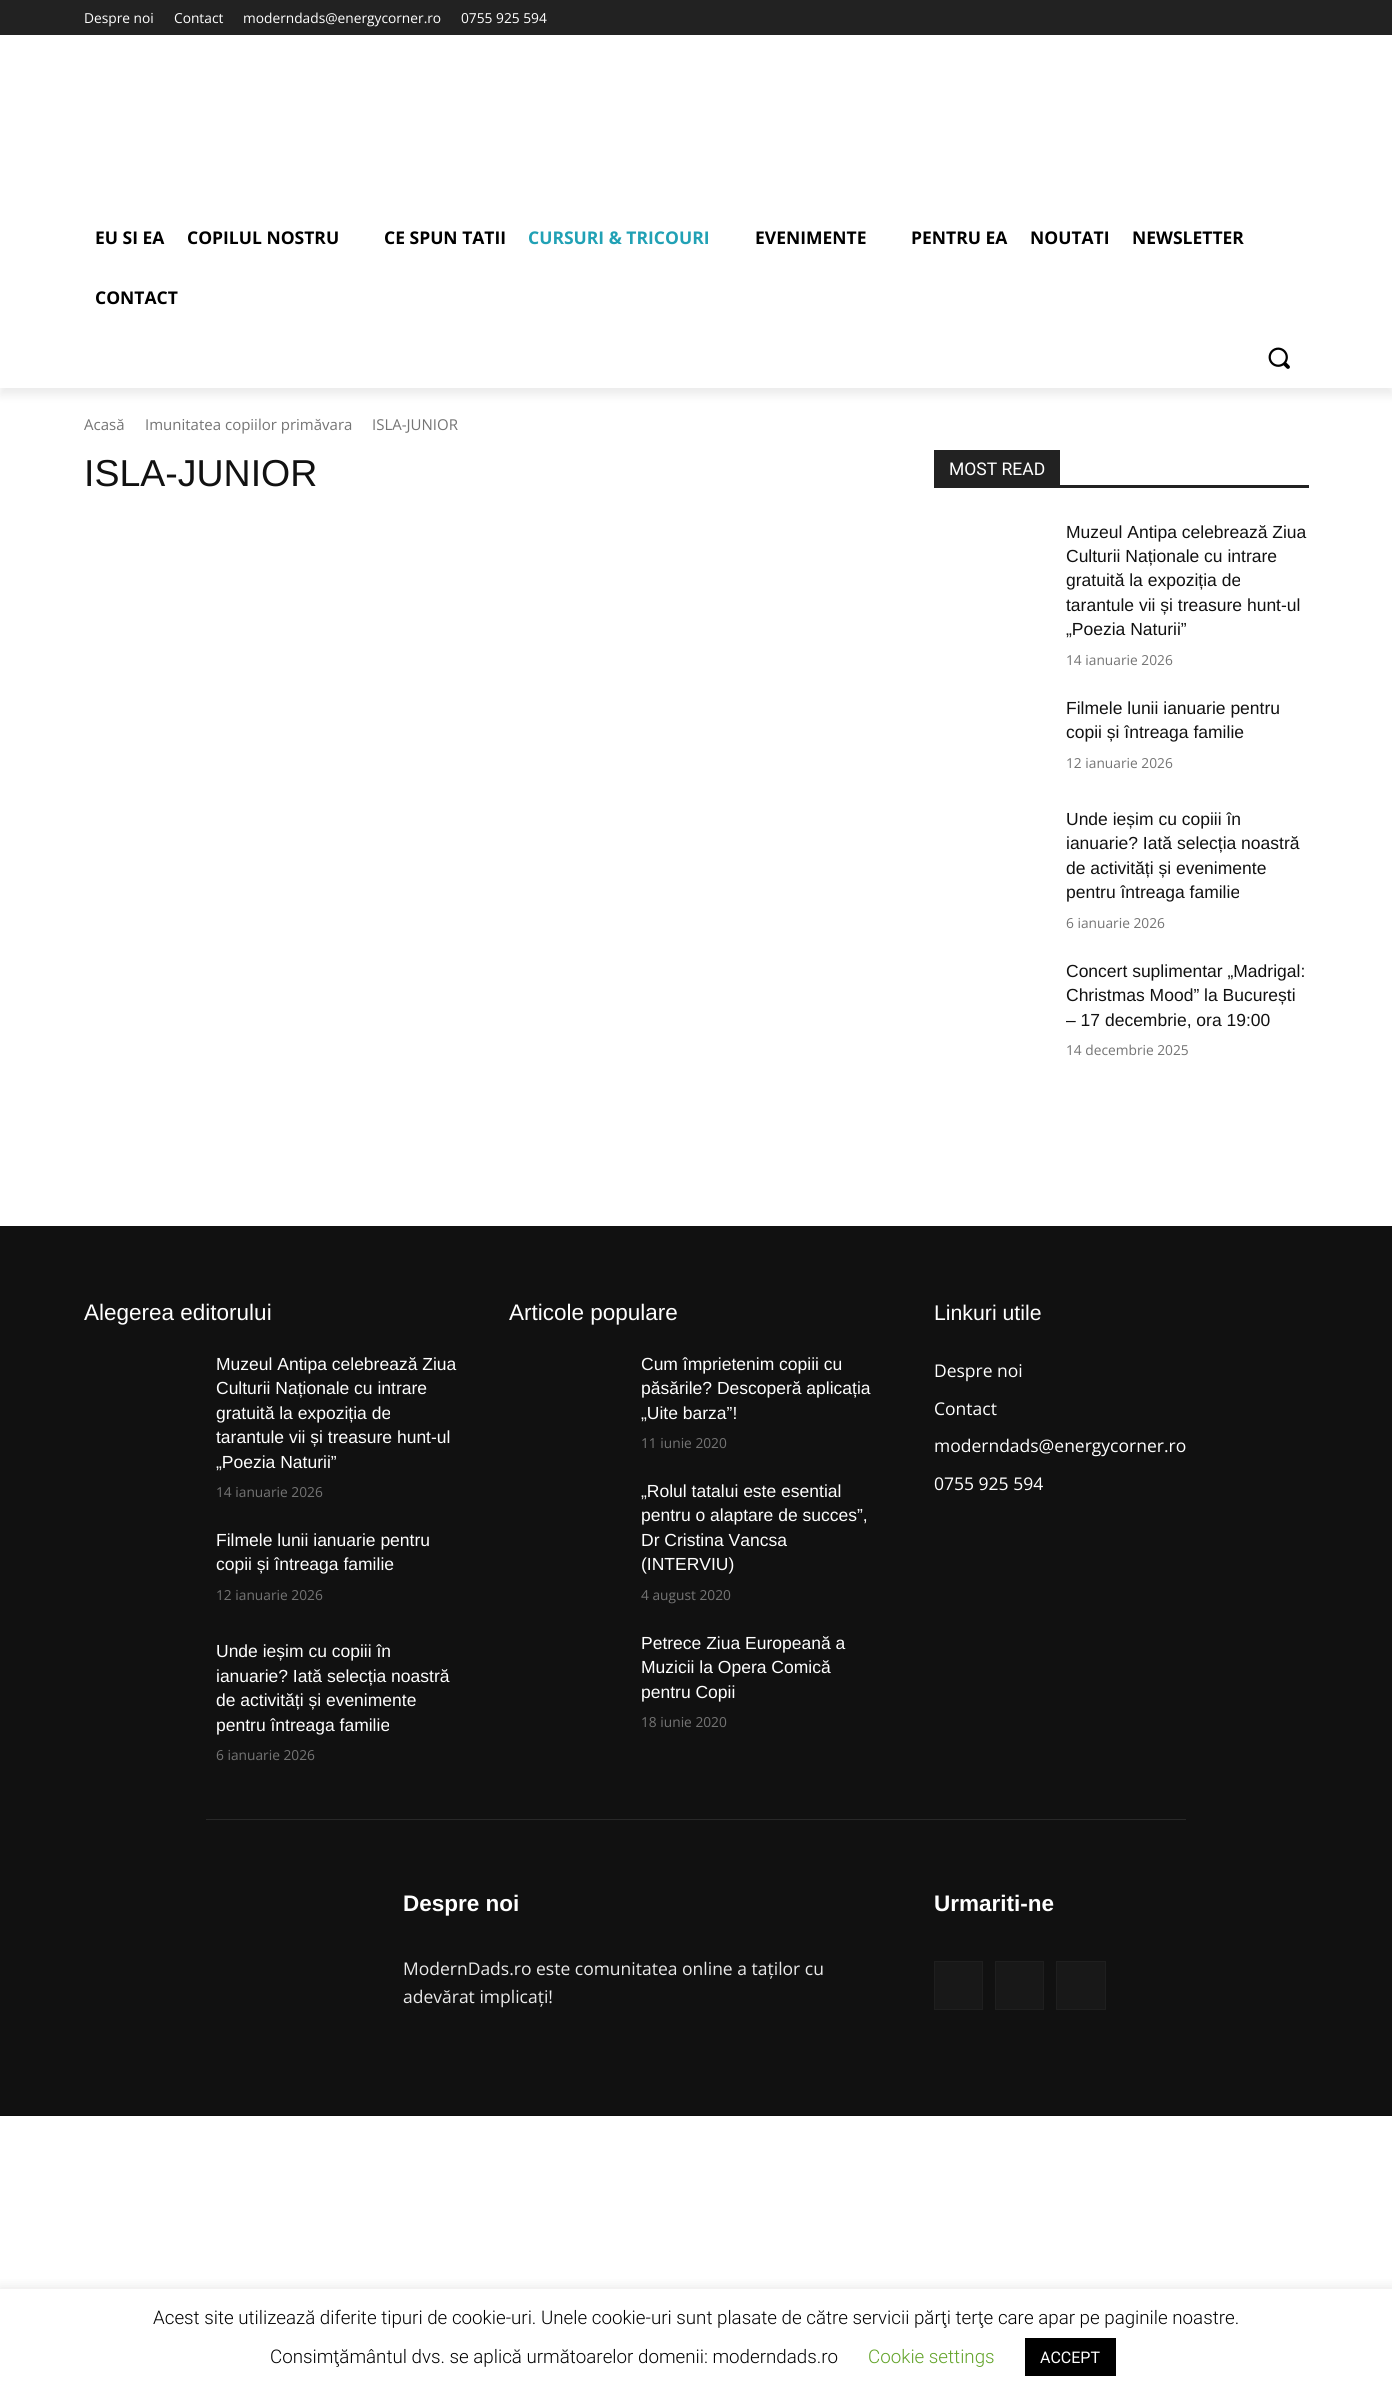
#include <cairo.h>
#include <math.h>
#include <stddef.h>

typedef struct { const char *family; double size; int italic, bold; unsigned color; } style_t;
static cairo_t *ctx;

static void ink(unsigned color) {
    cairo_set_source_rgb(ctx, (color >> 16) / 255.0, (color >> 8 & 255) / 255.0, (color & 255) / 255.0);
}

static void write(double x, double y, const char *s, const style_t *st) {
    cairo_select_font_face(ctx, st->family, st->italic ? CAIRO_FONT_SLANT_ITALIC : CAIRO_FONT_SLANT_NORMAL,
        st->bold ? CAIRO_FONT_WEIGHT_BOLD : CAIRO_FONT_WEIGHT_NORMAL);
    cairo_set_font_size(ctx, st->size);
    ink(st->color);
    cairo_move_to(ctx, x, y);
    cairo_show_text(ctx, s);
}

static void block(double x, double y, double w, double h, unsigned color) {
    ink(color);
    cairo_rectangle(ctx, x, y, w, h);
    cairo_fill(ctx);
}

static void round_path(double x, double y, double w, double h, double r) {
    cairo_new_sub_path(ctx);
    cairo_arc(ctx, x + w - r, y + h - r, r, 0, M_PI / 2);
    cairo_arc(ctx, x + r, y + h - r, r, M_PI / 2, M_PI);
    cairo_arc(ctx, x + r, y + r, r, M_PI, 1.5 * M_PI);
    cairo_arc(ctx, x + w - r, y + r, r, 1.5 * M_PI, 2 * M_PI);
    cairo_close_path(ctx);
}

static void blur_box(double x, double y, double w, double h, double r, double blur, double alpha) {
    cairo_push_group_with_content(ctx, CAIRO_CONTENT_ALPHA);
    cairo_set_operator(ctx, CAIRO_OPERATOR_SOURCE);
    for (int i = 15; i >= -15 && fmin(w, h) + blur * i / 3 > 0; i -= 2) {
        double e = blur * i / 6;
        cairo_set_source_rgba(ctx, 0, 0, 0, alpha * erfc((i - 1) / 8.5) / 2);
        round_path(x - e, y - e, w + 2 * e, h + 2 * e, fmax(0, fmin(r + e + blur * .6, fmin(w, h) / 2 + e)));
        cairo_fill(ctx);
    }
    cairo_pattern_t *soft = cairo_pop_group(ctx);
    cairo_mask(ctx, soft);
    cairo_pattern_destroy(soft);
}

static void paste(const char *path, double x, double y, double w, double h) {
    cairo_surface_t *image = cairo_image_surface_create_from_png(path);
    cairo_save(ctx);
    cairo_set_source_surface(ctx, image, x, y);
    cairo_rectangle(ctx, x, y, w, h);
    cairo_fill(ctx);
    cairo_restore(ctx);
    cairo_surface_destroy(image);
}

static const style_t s1 = {"Open Sans", 13.75, 0, 0, 0xffffff};
static const style_t s2 = {"Open Sans", 17.5, 0, 1, 0x000000};
static const style_t s3 = {"Open Sans", 17.5, 0, 1, 0x21a1b5};
static const style_t s4 = {"Open Sans", 15, 0, 0, 0x747474};
static const style_t s5 = {"Liberation Sans", 37.5, 0, 0, 0x111111};
static const style_t s6 = {"Roboto", 17.5, 0, 0, 0xffffff};
static const style_t s7 = {"Liberation Sans", 17.5, 0, 0, 0x111111};
static const style_t s8 = {"Open Sans", 13.75, 0, 0, 0x747474};
static const style_t s9 = {"Liberation Sans", 22.5, 0, 0, 0xffffff};
static const style_t s10 = {"Liberation Sans", 17.5, 0, 0, 0xffffff};
static const style_t s11 = {"Liberation Sans", 21.25, 0, 0, 0xffffff};
static const style_t s12 = {"Open Sans", 17.5, 0, 0, 0xffffff};
static const style_t s13 = {"Liberation Sans", 22.5, 0, 1, 0xffffff};
static const style_t s14 = {"Open Sans", 17.5, 0, 0, 0xeaeaea};
static const style_t s15 = {"Roboto Light", 18.75, 0, 0, 0x000000};
static const style_t s16 = {"Roboto Light", 18.75, 0, 0, 0x62a329};
static const style_t s17 = {"Roboto", 16, 0, 0, 0xffffff};

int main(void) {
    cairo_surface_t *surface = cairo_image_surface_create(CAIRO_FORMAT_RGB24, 1392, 2397);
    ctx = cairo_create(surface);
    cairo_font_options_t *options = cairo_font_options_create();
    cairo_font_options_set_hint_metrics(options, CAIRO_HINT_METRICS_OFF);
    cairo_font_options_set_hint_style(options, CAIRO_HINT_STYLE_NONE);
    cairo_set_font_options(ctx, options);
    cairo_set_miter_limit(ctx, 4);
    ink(0xffffff);
    cairo_paint(ctx);
    block(0, 0, 1392, 35, 0x222222);
    cairo_save(ctx);
    cairo_set_fill_rule(ctx, CAIRO_FILL_RULE_EVEN_ODD);
    cairo_new_path(ctx);
    cairo_move_to(ctx, 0, 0);
    cairo_line_to(ctx, 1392, 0);
    cairo_line_to(ctx, 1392, 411);
    cairo_line_to(ctx, 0, 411);
    cairo_close_path(ctx);
    cairo_move_to(ctx, 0, 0);
    cairo_line_to(ctx, 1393, 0);
    cairo_line_to(ctx, 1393, 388);
    cairo_line_to(ctx, 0, 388);
    cairo_close_path(ctx);
    cairo_clip(ctx);
    ink(0x000000);
    blur_box(0, 8, 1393, 387, 0, 5, 0.08);
    cairo_restore(ctx);
    write(84, 23, "Despre noi", &s1);
    write(174, 23, "Contact", &s1);
    write(243, 23, "moderndads@energycorner.ro", &s1);
    write(461, 23, "0755 925 594", &s1);
    write(95, 244, "EU SI EA", &s2);
    write(187, 244, "COPILUL NOSTRU", &s2);
    write(384, 244, "CE SPUN TATII", &s2);
    write(528, 244, "CURSURI & TRICOURI", &s3);
    write(755, 244, "EVENIMENTE", &s2);
    write(911, 244, "PENTRU EA", &s2);
    write(1030, 244, "NOUTATI", &s2);
    write(1132, 244, "NEWSLETTER", &s2);
    write(95, 304, "CONTACT", &s2);
    paste("pic1.png", 1268, 347, 22, 22);
    write(84, 430, "Acasă", &s4);
    write(145, 430, "Imunitatea copiilor primăvara", &s4);
    write(372, 430, "ISLA-JUNIOR", &s4);
    write(84, 486, "ISLA-JUNIOR", &s5);
    block(934, 485, 375, 3, 0x222222);
    block(934, 450, 126, 35, 0x222222);
    write(949, 475, "MOST READ", &s6);
    write(1066, 538, "Muzeul Antipa celebrează Ziua", &s7);
    write(1066, 562, "Culturii Naționale cu intrare", &s7);
    write(1066, 586, "gratuită la expoziția de", &s7);
    write(1066, 611, "tarantule vii și treasure hunt-ul", &s7);
    write(1066, 635, "„Poezia Naturii”", &s7);
    write(1066, 665, "14 ianuarie 2026", &s8);
    write(1066, 714, "Filmele lunii ianuarie pentru", &s7);
    write(1066, 738, "copii și întreaga familie", &s7);
    write(1066, 768, "12 ianuarie 2026", &s8);
    write(1066, 825, "Unde ieșim cu copiii în", &s7);
    write(1066, 849, "ianuarie? Iată selecția noastră", &s7);
    write(1066, 874, "de activități și evenimente", &s7);
    write(1066, 898, "pentru întreaga familie", &s7);
    write(1066, 928, "6 ianuarie 2026", &s8);
    write(1066, 977, "Concert suplimentar „Madrigal:", &s7);
    write(1066, 1001, "Christmas Mood” la București", &s7);
    write(1066, 1026, "– 17 decembrie, ora 19:00", &s7);
    write(1066, 1055, "14 decembrie 2025", &s8);
    block(0, 1226, 1392, 889, 0x111111);
    write(84, 1320, "Alegerea editorului", &s9);
    write(216, 1370, "Muzeul Antipa celebrează Ziua", &s10);
    write(216, 1394, "Culturii Naționale cu intrare", &s10);
    write(216, 1419, "gratuită la expoziția de", &s10);
    write(216, 1443, "tarantule vii și treasure hunt-ul", &s10);
    write(216, 1468, "„Poezia Naturii”", &s10);
    write(216, 1497, "14 ianuarie 2026", &s8);
    write(216, 1546, "Filmele lunii ianuarie pentru", &s10);
    write(216, 1570, "copii și întreaga familie", &s10);
    write(216, 1600, "12 ianuarie 2026", &s8);
    write(216, 1657, "Unde ieșim cu copiii în", &s10);
    write(216, 1682, "ianuarie? Iată selecția noastră", &s10);
    write(216, 1706, "de activități și evenimente", &s10);
    write(216, 1731, "pentru întreaga familie", &s10);
    write(216, 1760, "6 ianuarie 2026", &s8);
    write(509, 1320, "Articole populare", &s9);
    write(641, 1370, "Cum împrietenim copiii cu", &s10);
    write(641, 1394, "păsările? Descoperă aplicația", &s10);
    write(641, 1419, "„Uite barza”!", &s10);
    write(641, 1448, "11 iunie 2020", &s8);
    write(641, 1497, "„Rolul tatalui este esential", &s10);
    write(641, 1521, "pentru o alaptare de succes”,", &s10);
    write(641, 1546, "Dr Cristina Vancsa", &s10);
    write(641, 1570, "(INTERVIU)", &s10);
    write(641, 1600, "4 august 2020", &s8);
    write(641, 1649, "Petrece Ziua Europeană a", &s10);
    write(641, 1673, "Muzicii la Opera Comică", &s10);
    write(641, 1698, "pentru Copii", &s10);
    write(641, 1727, "18 iunie 2020", &s8);
    write(934, 1320, "Linkuri utile", &s11);
    write(934, 1377, "Despre noi", &s12);
    write(934, 1415, "Contact", &s12);
    write(934, 1452, "moderndads@energycorner.ro", &s12);
    write(934, 1490, "0755 925 594", &s12);
    block(206, 1819, 980, 1, 0x292929);
    write(403, 1911, "Despre noi", &s13);
    write(403, 1975, "ModernDads.ro este comunitatea online a taților cu", &s14);
    write(403, 2003, "adevărat implicați!", &s14);
    write(934, 1911, "Urmariti-ne", &s13);
    ink(0x181818);
    cairo_rectangle(ctx, 934.5, 1961.5, 48, 48);
    cairo_fill_preserve(ctx);
    ink(0x1f1f1f);
    cairo_set_line_width(ctx, 1);
    cairo_stroke(ctx);
    ink(0x181818);
    cairo_rectangle(ctx, 995.5, 1961.5, 48, 48);
    cairo_fill_preserve(ctx);
    ink(0x1f1f1f);
    cairo_stroke(ctx);
    ink(0x181818);
    cairo_rectangle(ctx, 1056.5, 1961.5, 49, 48);
    cairo_fill_preserve(ctx);
    ink(0x1f1f1f);
    cairo_stroke(ctx);
    block(0, 2115, 1392, 1, 0x0d0d0d);
    cairo_save(ctx);
    cairo_rectangle(ctx, 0, 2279, 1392, 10);
    cairo_clip(ctx);
    ink(0xacabab);
    blur_box(0, 2288, 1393, 108, 0, 6, 0.3);
    cairo_restore(ctx);
    write(153, 2324, "Acest site utilizează diferite tipuri de cookie-uri. Unele cookie-uri sunt plasate de către servicii părţi terţe care apar pe paginile noastre.", &s15);
    write(270, 2363, "Consimţământul dvs. se aplică următoarelor domenii: moderndads.ro", &s15);
    write(868, 2363, "Cookie settings", &s16);
    block(1025, 2338, 91, 38, 0x000000);
    write(1040, 2363, "ACCEPT", &s17);
    cairo_surface_write_to_png(surface, "screenshot.png");
    cairo_font_options_destroy(options);
    cairo_destroy(ctx);
    cairo_surface_destroy(surface);
    return 0;
}
